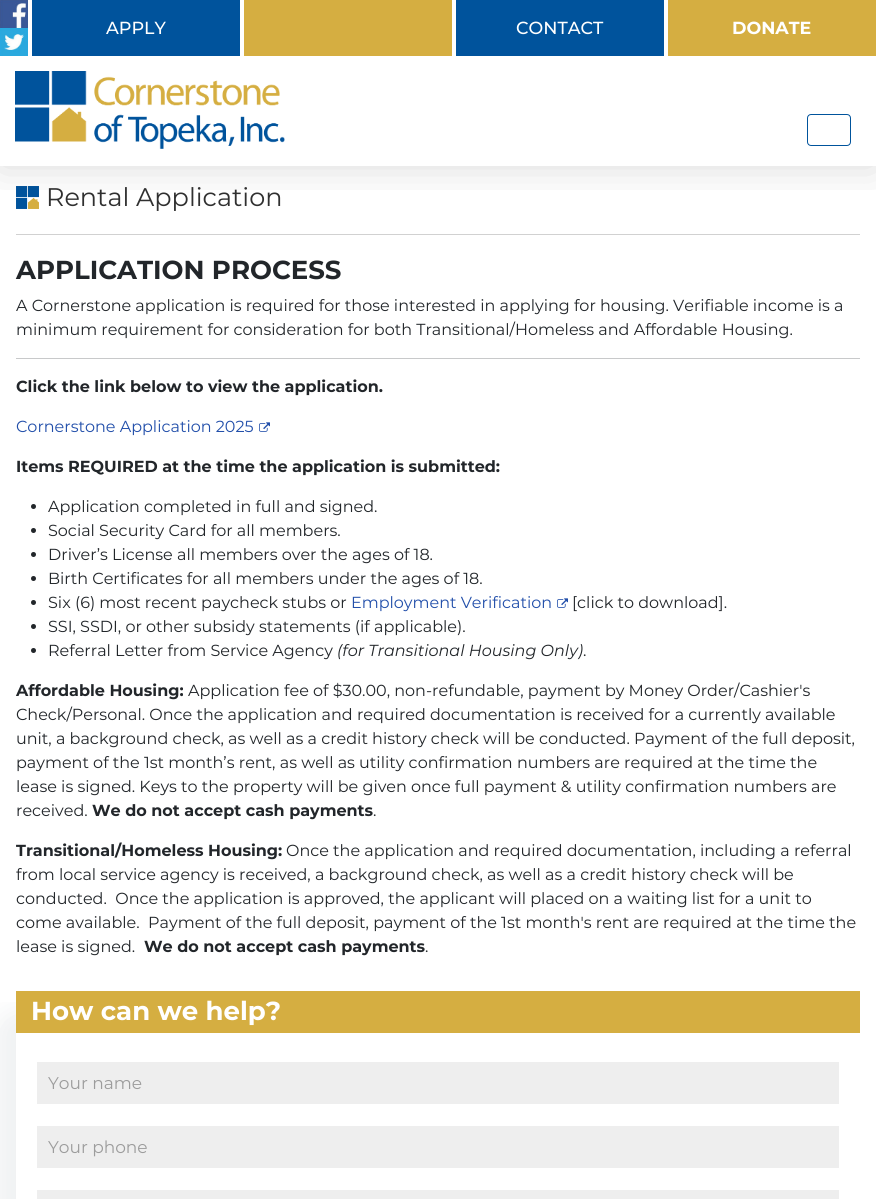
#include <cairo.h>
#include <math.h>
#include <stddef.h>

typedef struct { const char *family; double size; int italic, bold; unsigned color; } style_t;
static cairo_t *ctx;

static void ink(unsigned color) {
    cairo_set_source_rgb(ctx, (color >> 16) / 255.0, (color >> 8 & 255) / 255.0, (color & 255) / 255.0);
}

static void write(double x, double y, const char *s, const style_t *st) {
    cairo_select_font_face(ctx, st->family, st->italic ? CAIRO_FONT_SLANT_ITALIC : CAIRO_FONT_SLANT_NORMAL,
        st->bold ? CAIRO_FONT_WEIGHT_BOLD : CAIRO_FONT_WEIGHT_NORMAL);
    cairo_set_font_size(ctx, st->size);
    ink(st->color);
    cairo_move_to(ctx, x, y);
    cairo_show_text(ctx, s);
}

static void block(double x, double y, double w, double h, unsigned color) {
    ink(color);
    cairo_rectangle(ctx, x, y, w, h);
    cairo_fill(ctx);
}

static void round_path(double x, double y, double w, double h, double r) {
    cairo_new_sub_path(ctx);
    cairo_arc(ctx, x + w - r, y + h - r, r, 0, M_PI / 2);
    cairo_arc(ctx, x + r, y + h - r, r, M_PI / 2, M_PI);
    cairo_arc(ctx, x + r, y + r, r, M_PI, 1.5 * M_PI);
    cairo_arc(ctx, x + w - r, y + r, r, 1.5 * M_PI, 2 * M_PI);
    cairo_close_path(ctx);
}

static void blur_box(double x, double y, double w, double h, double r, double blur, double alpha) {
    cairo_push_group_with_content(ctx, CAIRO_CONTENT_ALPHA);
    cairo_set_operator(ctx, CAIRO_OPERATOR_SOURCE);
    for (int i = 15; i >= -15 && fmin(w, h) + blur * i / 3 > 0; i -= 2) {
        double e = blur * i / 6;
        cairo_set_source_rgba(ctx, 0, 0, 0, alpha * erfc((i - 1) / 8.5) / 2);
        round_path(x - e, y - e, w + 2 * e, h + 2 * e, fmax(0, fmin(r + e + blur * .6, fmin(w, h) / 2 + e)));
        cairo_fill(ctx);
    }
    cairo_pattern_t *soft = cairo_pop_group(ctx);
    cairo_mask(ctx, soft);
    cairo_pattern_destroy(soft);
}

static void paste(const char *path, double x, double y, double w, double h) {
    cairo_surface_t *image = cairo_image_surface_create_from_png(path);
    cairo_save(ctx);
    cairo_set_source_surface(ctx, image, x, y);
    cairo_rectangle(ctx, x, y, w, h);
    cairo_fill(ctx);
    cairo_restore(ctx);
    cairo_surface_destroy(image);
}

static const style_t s1 = {"Montserrat Medium", 17.5, 0, 0, 0xffffff};
static const style_t s2 = {"Montserrat", 17.5, 0, 1, 0xffffff};
static const style_t s3 = {"Montserrat", 25.5, 0, 0, 0x303030};
static const style_t s4 = {"Montserrat", 26, 0, 1, 0x22262a};
static const style_t s5 = {"Montserrat", 16, 0, 0, 0x22262a};
static const style_t s6 = {"Montserrat", 16, 0, 1, 0x22262a};
static const style_t s7 = {"Montserrat", 16, 0, 0, 0x224faa};
static const style_t s8 = {"Montserrat", 16, 1, 0, 0x22262a};
static const style_t s9 = {"Montserrat", 26, 0, 1, 0xffffff};
static const style_t s10 = {"Montserrat", 17, 0, 0, 0x9c9c9c};

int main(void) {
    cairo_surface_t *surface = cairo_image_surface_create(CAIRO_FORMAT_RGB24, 876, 1199);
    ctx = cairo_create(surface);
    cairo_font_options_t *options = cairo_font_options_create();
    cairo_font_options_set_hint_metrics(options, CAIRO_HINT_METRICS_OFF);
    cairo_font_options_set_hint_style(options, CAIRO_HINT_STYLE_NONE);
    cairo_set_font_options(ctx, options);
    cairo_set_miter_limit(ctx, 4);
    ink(0xffffff);
    cairo_paint(ctx);
    paste("pic4.png", 16, 186, 23, 23);
    cairo_save(ctx);
    cairo_rectangle(ctx, 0, 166, 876, 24);
    cairo_clip(ctx);
    ink(0x000000);
    blur_box(0, 56, 876, 110, 0, 21.5, 0.15);
    cairo_restore(ctx);
    paste("pic1.png", 15, 71, 270, 78);
    round_path(807.5, 114.5, 43, 31, 3.5);
    ink(0x00539c);
    cairo_set_line_width(ctx, 1);
    cairo_stroke(ctx);
    block(28, 25, 4, 31, 0xffffff);
    paste("pic2.png", 0, 0, 28, 28);
    paste("pic3.png", 0, 28, 28, 28);
    block(32, 0, 208, 56, 0x00539c);
    block(240, 24, 4, 32, 0xffffff);
    write(106, 34, "APPLY", &s1);
    block(244, 0, 208, 56, 0xd5ae41);
    block(452, 24, 4, 32, 0xffffff);
    block(456, 0, 208, 56, 0x00539c);
    block(664, 24, 4, 32, 0xffffff);
    write(516, 34, "CONTACT", &s1);
    block(668, 0, 208, 56, 0xd5ae41);
    write(732, 34, "DONATE", &s2);
    block(16, 234, 844, 1, 0xd1d1d1);
    write(46, 206, "Rental Application", &s3);
    write(16, 279, "APPLICATION PROCESS", &s4);
    write(16, 311, "A Cornerstone application is required for those interested in applying for housing. Verifiable income is a", &s5);
    write(16, 335, "minimum requirement for consideration for both Transitional/Homeless and Affordable Housing.", &s5);
    block(16, 358, 844, 1, 0xc8c9ca);
    write(16, 392, "Click the link below to view the application.", &s6);
    write(16, 432, "Cornerstone Application 2025", &s7);
    paste("pic5.png", 259, 422, 11, 10);
    write(16, 472, "Items REQUIRED at the time the application is submitted:", &s6);
    cairo_new_path(ctx);
    cairo_arc(ctx, 33.5, 506.5, 2.5, 0, 2 * M_PI);
    cairo_fill(ctx);
    write(48, 512, "Application completed in full and signed.", &s5);
    cairo_new_path(ctx);
    cairo_arc(ctx, 33.5, 530.5, 2.5, 0, 2 * M_PI);
    cairo_fill(ctx);
    write(48, 536, "Social Security Card for all members.", &s5);
    cairo_new_path(ctx);
    cairo_arc(ctx, 33.5, 554.5, 2.5, 0, 2 * M_PI);
    cairo_fill(ctx);
    write(48, 560, "Driver’s License all members over the ages of 18.", &s5);
    cairo_new_path(ctx);
    cairo_arc(ctx, 33.5, 578.5, 2.5, 0, 2 * M_PI);
    cairo_fill(ctx);
    write(48, 584, "Birth Certificates for all members under the ages of 18.", &s5);
    cairo_new_path(ctx);
    cairo_arc(ctx, 33.5, 602.5, 2.5, 0, 2 * M_PI);
    cairo_fill(ctx);
    write(48, 608, "Six (6) most recent paycheck stubs or", &s5);
    write(351, 608, "Employment Verification", &s7);
    paste("pic5.png", 557, 598, 11, 10);
    write(572, 608, "[click to download].", &s5);
    cairo_new_path(ctx);
    cairo_arc(ctx, 33.5, 626.5, 2.5, 0, 2 * M_PI);
    cairo_fill(ctx);
    write(48, 632, "SSI, SSDI, or other subsidy statements (if applicable).", &s5);
    cairo_new_path(ctx);
    cairo_arc(ctx, 33.5, 650.5, 2.5, 0, 2 * M_PI);
    cairo_fill(ctx);
    write(48, 656, "Referral Letter from Service Agency", &s5);
    write(337, 656, "(for Transitional Housing Only)", &s8);
    write(583, 656, ".", &s5);
    write(16, 696, "Affordable Housing:", &s6);
    write(188, 696, "Application fee of $30.00, non-refundable, payment by Money Order/Cashier's", &s5);
    write(16, 720, "Check/Personal. Once the application and required documentation is received for a currently available", &s5);
    write(16, 744, "unit, a background check, as well as a credit history check will be conducted. Payment of the full deposit,", &s5);
    write(16, 768, "payment of the 1st month’s rent, as well as utility confirmation numbers are required at the time the", &s5);
    write(16, 792, "lease is signed. Keys to the property will be given once full payment & utility confirmation numbers are", &s5);
    write(16, 816, "received.", &s5);
    write(92, 816, "We do not accept cash payments", &s6);
    write(373, 816, ".", &s5);
    write(16, 856, "Transitional/Homeless Housing:", &s6);
    write(286, 856, "Once the application and required documentation, including a referral", &s5);
    write(16, 880, "from local service agency is received, a background check, as well as a credit history check will be", &s5);
    write(16, 904, "conducted.  Once the application is approved, the applicant will placed on a waiting list for a unit to", &s5);
    write(16, 928, "come available.  Payment of the full deposit, payment of the 1st month's rent are required at the time the", &s5);
    write(16, 952, "lease is signed.", &s5);
    write(144, 952, "We do not accept cash payments", &s6);
    write(425, 952, ".", &s5);
    cairo_save(ctx);
    cairo_rectangle(ctx, 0, 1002, 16, 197);
    cairo_clip(ctx);
    ink(0x657680);
    blur_box(-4, 1011, 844, 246, 20, 12.5, 0.1);
    cairo_restore(ctx);
    block(16, 991, 844, 42, 0xd5ae41);
    write(31, 1020, "How can we help?", &s9);
    block(37, 1062, 802, 42, 0xeeeeee);
    write(48, 1089, "Your name", &s10);
    block(37, 1126, 802, 42, 0xeeeeee);
    write(48, 1153, "Your phone", &s10);
    block(37, 1190, 802, 9, 0xeeeeee);
    cairo_surface_write_to_png(surface, "screenshot.png");
    cairo_font_options_destroy(options);
    cairo_destroy(ctx);
    cairo_surface_destroy(surface);
    return 0;
}
